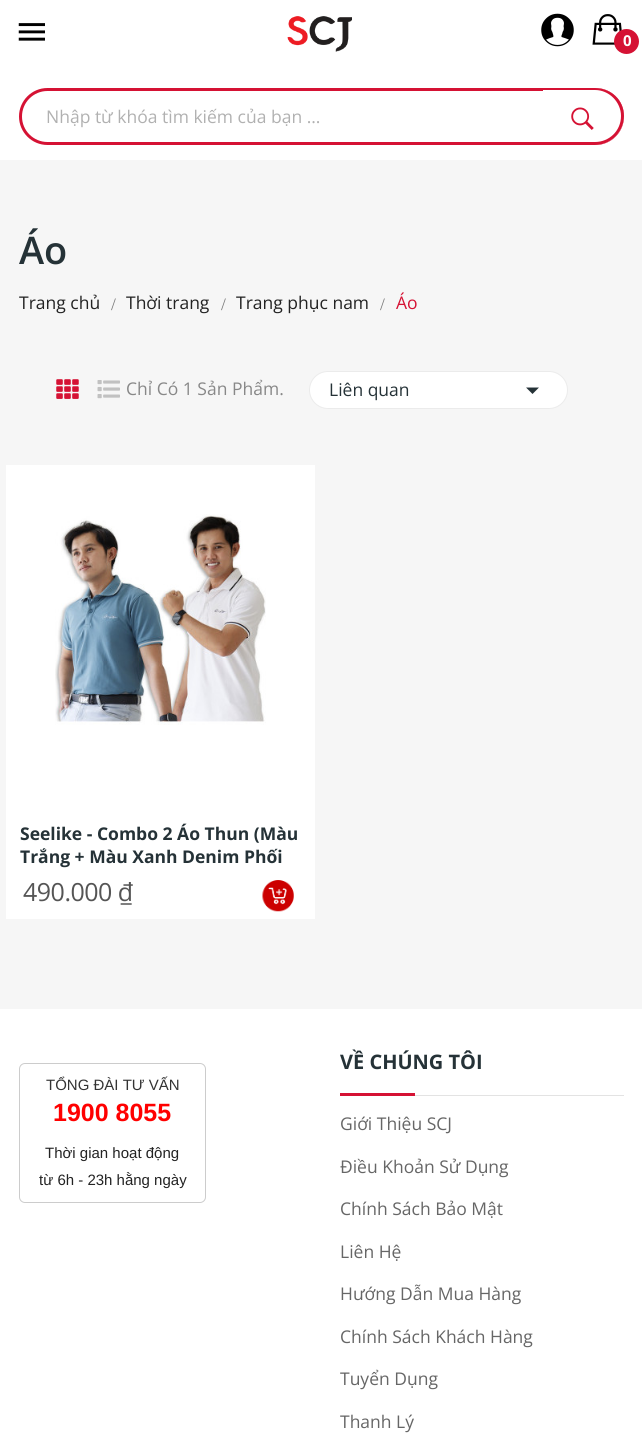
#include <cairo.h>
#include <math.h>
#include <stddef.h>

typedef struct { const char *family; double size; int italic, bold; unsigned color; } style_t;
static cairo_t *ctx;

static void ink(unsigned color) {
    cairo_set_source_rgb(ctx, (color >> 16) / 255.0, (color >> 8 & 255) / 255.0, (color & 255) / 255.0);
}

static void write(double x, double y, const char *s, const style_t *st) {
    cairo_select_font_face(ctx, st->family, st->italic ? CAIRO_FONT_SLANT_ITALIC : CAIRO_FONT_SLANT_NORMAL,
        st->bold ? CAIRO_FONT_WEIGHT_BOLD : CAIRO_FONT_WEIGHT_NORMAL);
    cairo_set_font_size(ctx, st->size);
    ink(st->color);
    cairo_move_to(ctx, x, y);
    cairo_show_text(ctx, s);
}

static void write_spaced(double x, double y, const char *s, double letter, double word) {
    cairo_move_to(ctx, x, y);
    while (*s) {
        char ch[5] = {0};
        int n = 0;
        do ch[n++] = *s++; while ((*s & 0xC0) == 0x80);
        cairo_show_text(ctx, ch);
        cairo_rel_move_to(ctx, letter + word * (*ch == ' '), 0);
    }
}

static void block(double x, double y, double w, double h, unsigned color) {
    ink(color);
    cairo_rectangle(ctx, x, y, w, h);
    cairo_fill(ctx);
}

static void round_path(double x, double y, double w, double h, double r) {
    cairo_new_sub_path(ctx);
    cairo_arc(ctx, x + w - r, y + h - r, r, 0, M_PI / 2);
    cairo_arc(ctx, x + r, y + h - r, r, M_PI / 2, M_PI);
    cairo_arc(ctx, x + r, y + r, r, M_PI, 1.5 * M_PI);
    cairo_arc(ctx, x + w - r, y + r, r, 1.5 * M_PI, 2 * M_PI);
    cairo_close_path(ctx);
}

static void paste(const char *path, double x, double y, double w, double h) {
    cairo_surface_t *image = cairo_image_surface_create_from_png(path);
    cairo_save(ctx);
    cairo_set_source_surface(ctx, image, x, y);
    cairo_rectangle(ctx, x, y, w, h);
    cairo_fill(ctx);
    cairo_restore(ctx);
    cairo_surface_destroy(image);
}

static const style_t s1 = {"Open Sans", 15, 0, 1, 0xffffff};
static const style_t s2 = {"Open Sans", 17.5, 0, 0, 0xb1b1b1};
static const style_t s3 = {"Open Sans SemiBold", 38, 0, 0, 0x253237};
static const style_t s4 = {"Open Sans", 17.5, 0, 0, 0x232323};
static const style_t s5 = {"Liberation Serif", 17.5, 0, 0, 0x7a7a7a};
static const style_t s6 = {"Open Sans", 17.5, 0, 0, 0xd51234};
static const style_t s7 = {"Open Sans", 17.5, 0, 0, 0x888888};
static const style_t s8 = {"Open Sans", 17.5, 0, 0, 0x253237};
static const style_t s9 = {"Open Sans", 17.5, 0, 1, 0x253237};
static const style_t s10 = {"Liberation Sans", 15, 0, 0, 0x333333};
static const style_t s11 = {"Liberation Sans", 25, 0, 1, 0xff0000};
static const style_t s12 = {"Liberation Sans", 15, 0, 0, 0x232323};
static const style_t s13 = {"Open Sans", 20, 0, 1, 0x253237};
static const style_t s14 = {"Open Sans", 17.5, 0, 0, 0x666666};

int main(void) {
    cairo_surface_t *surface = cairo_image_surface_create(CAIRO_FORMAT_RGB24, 642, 1441);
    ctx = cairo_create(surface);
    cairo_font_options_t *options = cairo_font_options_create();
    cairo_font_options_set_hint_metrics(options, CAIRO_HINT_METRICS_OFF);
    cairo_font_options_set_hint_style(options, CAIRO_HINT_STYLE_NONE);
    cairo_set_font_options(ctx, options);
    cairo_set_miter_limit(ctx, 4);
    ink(0xffffff);
    cairo_paint(ctx);
    paste("pic1.png", 18, 23, 27, 18);
    paste("pic2.png", 287, 16, 65, 36);
    paste("pic3.png", 541, 13, 33, 34);
    paste("pic4.png", 592, 14, 30, 31);
    ink(0xd51234);
    cairo_arc(ctx, 626.5, 41.5, 12.5, 0, 2 * M_PI);
    cairo_fill(ctx);
    write(623, 46, "0", &s1);
    round_path(20.5, 89.5, 602, 54, 27);
    ink(0xd51234);
    cairo_set_line_width(ctx, 3);
    cairo_stroke(ctx);
    write(46, 123, "Nhập từ khóa tìm kiếm của bạn ...", &s2);
    ink(0xffffff);
    cairo_new_path(ctx);
    cairo_move_to(ctx, 543, 88);
    cairo_line_to(ctx, 595.5, 88);
    cairo_curve_to(ctx, 611, 88, 624, 101, 624, 116.5);
    cairo_curve_to(ctx, 624, 132, 611, 145, 595.5, 145);
    cairo_line_to(ctx, 543, 145);
    cairo_close_path(ctx);
    cairo_fill(ctx);
    ink(0xd51234);
    cairo_set_fill_rule(ctx, CAIRO_FILL_RULE_EVEN_ODD);
    cairo_new_path(ctx);
    cairo_move_to(ctx, 542, 88);
    cairo_line_to(ctx, 595, 88);
    cairo_curve_to(ctx, 611, 88, 624, 100, 624, 116);
    cairo_curve_to(ctx, 624, 132, 611, 145, 595, 145);
    cairo_line_to(ctx, 542, 145);
    cairo_close_path(ctx);
    cairo_move_to(ctx, 542, 90);
    cairo_line_to(ctx, 595, 90);
    cairo_curve_to(ctx, 609, 90, 621, 102, 621, 116);
    cairo_curve_to(ctx, 621, 131, 609, 142, 595, 142);
    cairo_line_to(ctx, 542, 142);
    cairo_close_path(ctx);
    cairo_fill(ctx);
    paste("pic5.png", 571, 107, 23, 23);
    block(0, 160, 642, 849, 0xf6f6f6);
    write(19, 264, "Áo", &s3);
    write(19, 309, "Trang chủ", &s4);
    write(111, 310, "/", &s5);
    write(126, 309, "Thời trang", &s4);
    write(221, 310, "/", &s5);
    write(236, 309, "Trang phục nam", &s4);
    write(380, 310, "/", &s5);
    write(396, 309, "Áo", &s6);
    paste("pic6.png", 56, 379, 23, 20);
    paste("pic7.png", 97, 380, 23, 19);
    write(126, 395, "Chỉ Có 1 Sản Phẩm.", &s7);
    ink(0xffffff);
    round_path(309.5, 371.5, 258, 37, 18.5);
    cairo_fill_preserve(ctx);
    ink(0xebebeb);
    cairo_set_line_width(ctx, 1);
    cairo_stroke(ctx);
    write(329, 396, "Liên quan", &s8);
    cairo_set_fill_rule(ctx, CAIRO_FILL_RULE_WINDING);
    cairo_new_path(ctx);
    cairo_move_to(ctx, 526, 387.5);
    cairo_line_to(ctx, 539, 387.5);
    cairo_line_to(ctx, 532.5, 394);
    cairo_close_path(ctx);
    cairo_fill(ctx);
    block(6, 465, 309, 454, 0xffffff);
    paste("pic8.png", 55, 514, 211, 211);
    write(20, 840, "Seelike - Combo 2 Áo Thun (Màu", &s9);
    write(20, 863, "Trắng + Màu Xanh Denim Phối", &s9);
    cairo_select_font_face(ctx, "Open Sans", CAIRO_FONT_SLANT_NORMAL, CAIRO_FONT_WEIGHT_NORMAL);
    cairo_set_font_size(ctx, 25);
    ink(0x555555);
    write_spaced(23, 901, "490.000 ₫", -0.5, 0);
    paste("pic9.png", 262, 880, 32, 32);
    round_path(19.5, 1063.5, 186, 139, 5.5);
    ink(0xcccccc);
    cairo_stroke(ctx);
    write(46, 1090, "TỔNG ĐÀI TƯ VẤN", &s10);
    write(53, 1121, "1900 8055", &s11);
    write(45, 1158, "Thời gian hoạt động", &s12);
    write(39, 1185, "từ 6h - 23h hằng ngày", &s12);
    block(415, 1095, 209, 1, 0xe3e3e3);
    write(340, 1069, "VỀ CHÚNG TÔI", &s13);
    block(340, 1093, 75, 3, 0xd51234);
    write(340, 1130, "Giới Thiệu SCJ", &s14);
    write(340, 1173, "Điều Khoản Sử Dụng", &s14);
    write(340, 1215, "Chính Sách Bảo Mật", &s14);
    write(340, 1258, "Liên Hệ", &s14);
    write(340, 1300, "Hướng Dẫn Mua Hàng", &s14);
    write(340, 1343, "Chính Sách Khách Hàng", &s14);
    write(340, 1385, "Tuyển Dụng", &s14);
    write(340, 1428, "Thanh Lý", &s14);
    cairo_surface_write_to_png(surface, "screenshot.png");
    cairo_font_options_destroy(options);
    cairo_destroy(ctx);
    cairo_surface_destroy(surface);
    return 0;
}
